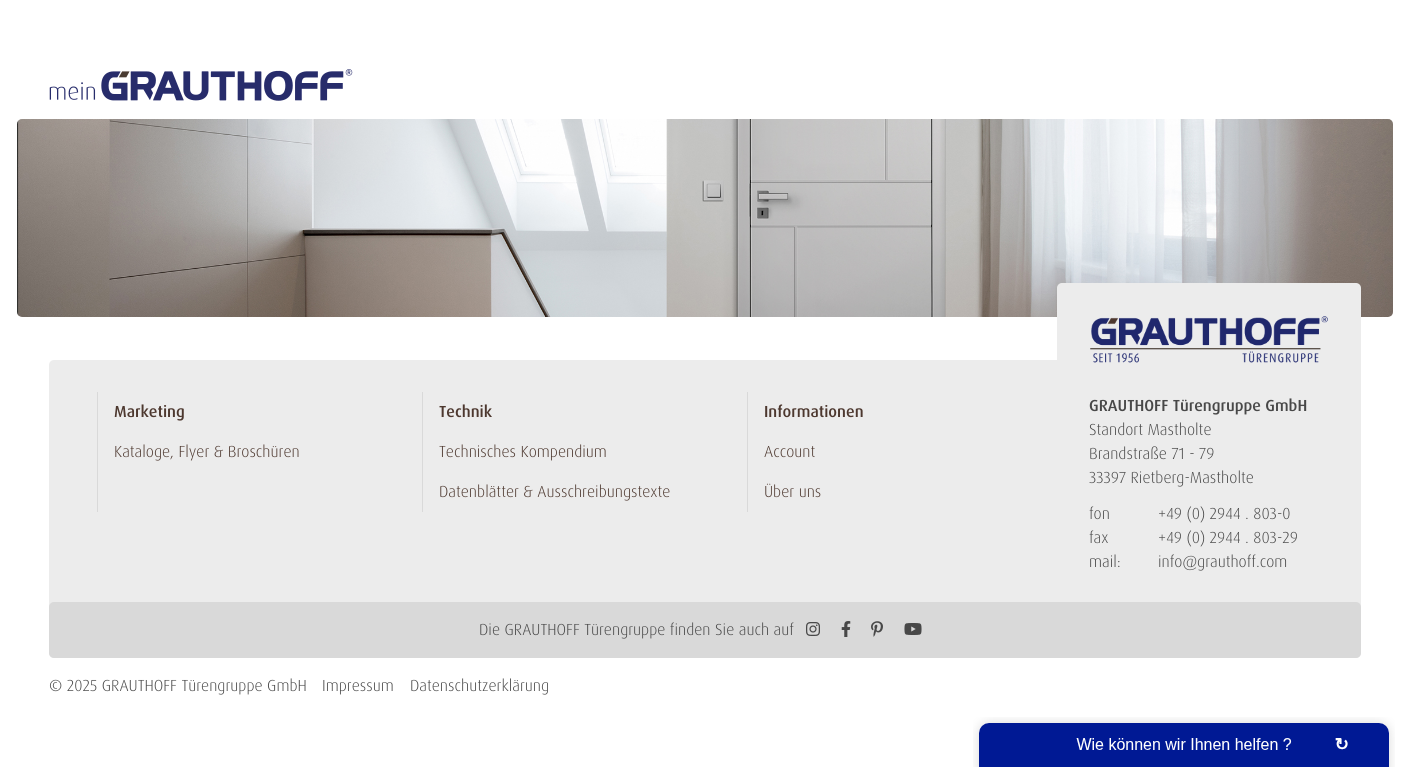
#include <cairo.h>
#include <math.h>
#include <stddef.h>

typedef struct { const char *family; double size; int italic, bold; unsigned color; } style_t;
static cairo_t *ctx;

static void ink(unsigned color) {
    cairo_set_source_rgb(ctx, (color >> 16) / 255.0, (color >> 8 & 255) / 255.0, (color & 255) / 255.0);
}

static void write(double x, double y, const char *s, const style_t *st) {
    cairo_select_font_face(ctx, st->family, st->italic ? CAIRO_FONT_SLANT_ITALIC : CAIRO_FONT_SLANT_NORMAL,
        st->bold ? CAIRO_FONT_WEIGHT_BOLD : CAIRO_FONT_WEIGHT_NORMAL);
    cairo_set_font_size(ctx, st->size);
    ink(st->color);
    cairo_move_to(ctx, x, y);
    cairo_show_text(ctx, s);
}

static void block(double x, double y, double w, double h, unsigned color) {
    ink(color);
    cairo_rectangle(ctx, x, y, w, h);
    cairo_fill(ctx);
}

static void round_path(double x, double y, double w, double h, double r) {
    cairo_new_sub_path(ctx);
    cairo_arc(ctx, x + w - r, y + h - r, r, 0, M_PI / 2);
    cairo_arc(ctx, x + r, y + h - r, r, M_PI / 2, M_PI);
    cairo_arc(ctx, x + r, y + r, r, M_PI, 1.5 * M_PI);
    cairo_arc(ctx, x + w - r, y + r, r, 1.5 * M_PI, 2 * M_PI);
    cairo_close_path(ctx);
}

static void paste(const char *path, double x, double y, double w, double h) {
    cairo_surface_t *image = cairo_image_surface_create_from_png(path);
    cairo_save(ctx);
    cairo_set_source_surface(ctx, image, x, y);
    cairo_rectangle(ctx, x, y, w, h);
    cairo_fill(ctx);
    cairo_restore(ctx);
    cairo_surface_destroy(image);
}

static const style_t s1 = {"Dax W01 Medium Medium", 16, 0, 0, 0x4d382f};
static const style_t s2 = {"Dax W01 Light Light", 16, 0, 0, 0x4d382f};
static const style_t s3 = {"Dax W01 Medium Medium", 16, 0, 0, 0x484848};
static const style_t s4 = {"Dax W01 Light Light", 16, 0, 0, 0x484848};

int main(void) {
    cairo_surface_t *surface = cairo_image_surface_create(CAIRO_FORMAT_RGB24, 1409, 767);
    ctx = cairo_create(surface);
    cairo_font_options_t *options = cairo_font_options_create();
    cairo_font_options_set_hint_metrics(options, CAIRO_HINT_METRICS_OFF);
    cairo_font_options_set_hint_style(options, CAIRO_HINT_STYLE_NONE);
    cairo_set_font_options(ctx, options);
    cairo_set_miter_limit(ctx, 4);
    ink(0xffffff);
    cairo_paint(ctx);
    paste("pic1.png", 49, 69, 304, 32);
    paste("pic2.png", 17, 119, 1376, 198);
    ink(0xececec);
    round_path(49, 360, 1312, 298, 5);
    cairo_fill(ctx);
    round_path(1057, 283, 304, 97, 5);
    cairo_fill(ctx);
    paste("pic3.png", 1090, 316, 238, 47);
    block(97, 392, 1, 120, 0xd9d9d9);
    write(114, 417, "Marketing", &s1);
    write(114, 457, "Kataloge, Flyer & Broschüren", &s2);
    block(422, 392, 1, 120, 0xd9d9d9);
    write(439, 417, "Technik", &s1);
    write(439, 457, "Technisches Kompendium", &s2);
    write(439, 497, "Datenblätter & Ausschreibungstexte", &s2);
    block(747, 392, 1, 120, 0xd9d9d9);
    write(764, 417, "Informationen", &s1);
    write(764, 457, "Account", &s2);
    write(764, 497, "Über uns", &s2);
    write(1089, 411, "GRAUTHOFF Türengruppe GmbH", &s3);
    write(1089, 435, "Standort Mastholte", &s4);
    write(1089, 459, "Brandstraße 71 - 79", &s4);
    write(1089, 483, "33397 Rietberg-Mastholte", &s4);
    write(1089, 519, "fon", &s4);
    write(1158, 519, "+49 (0) 2944 . 803-0", &s4);
    write(1089, 543, "fax", &s4);
    write(1158, 543, "+49 (0) 2944 . 803-29", &s4);
    write(1089, 567, "mail:", &s4);
    write(1158, 567, "info@grauthoff.com", &s4);
    ink(0xd9d9d9);
    round_path(49, 602, 1312, 56, 5);
    cairo_fill(ctx);
    write(479, 635, "Die GRAUTHOFF Türengruppe finden Sie auch auf", &s4);
    paste("pic4.png", 806, 622, 14, 14);
    paste("pic5.png", 841, 621, 10, 16);
    paste("pic6.png", 871, 621, 12, 16);
    paste("pic7.png", 904, 623, 18, 12);
    write(49, 691, "© 2025 GRAUTHOFF Türengruppe GmbH", &s4);
    write(322, 691, "Impressum", &s4);
    write(410, 691, "Datenschutzerklärung", &s4);
    paste("pic8.png", 973, 717, 422, 50);
    cairo_surface_write_to_png(surface, "screenshot.png");
    cairo_font_options_destroy(options);
    cairo_destroy(ctx);
    cairo_surface_destroy(surface);
    return 0;
}
